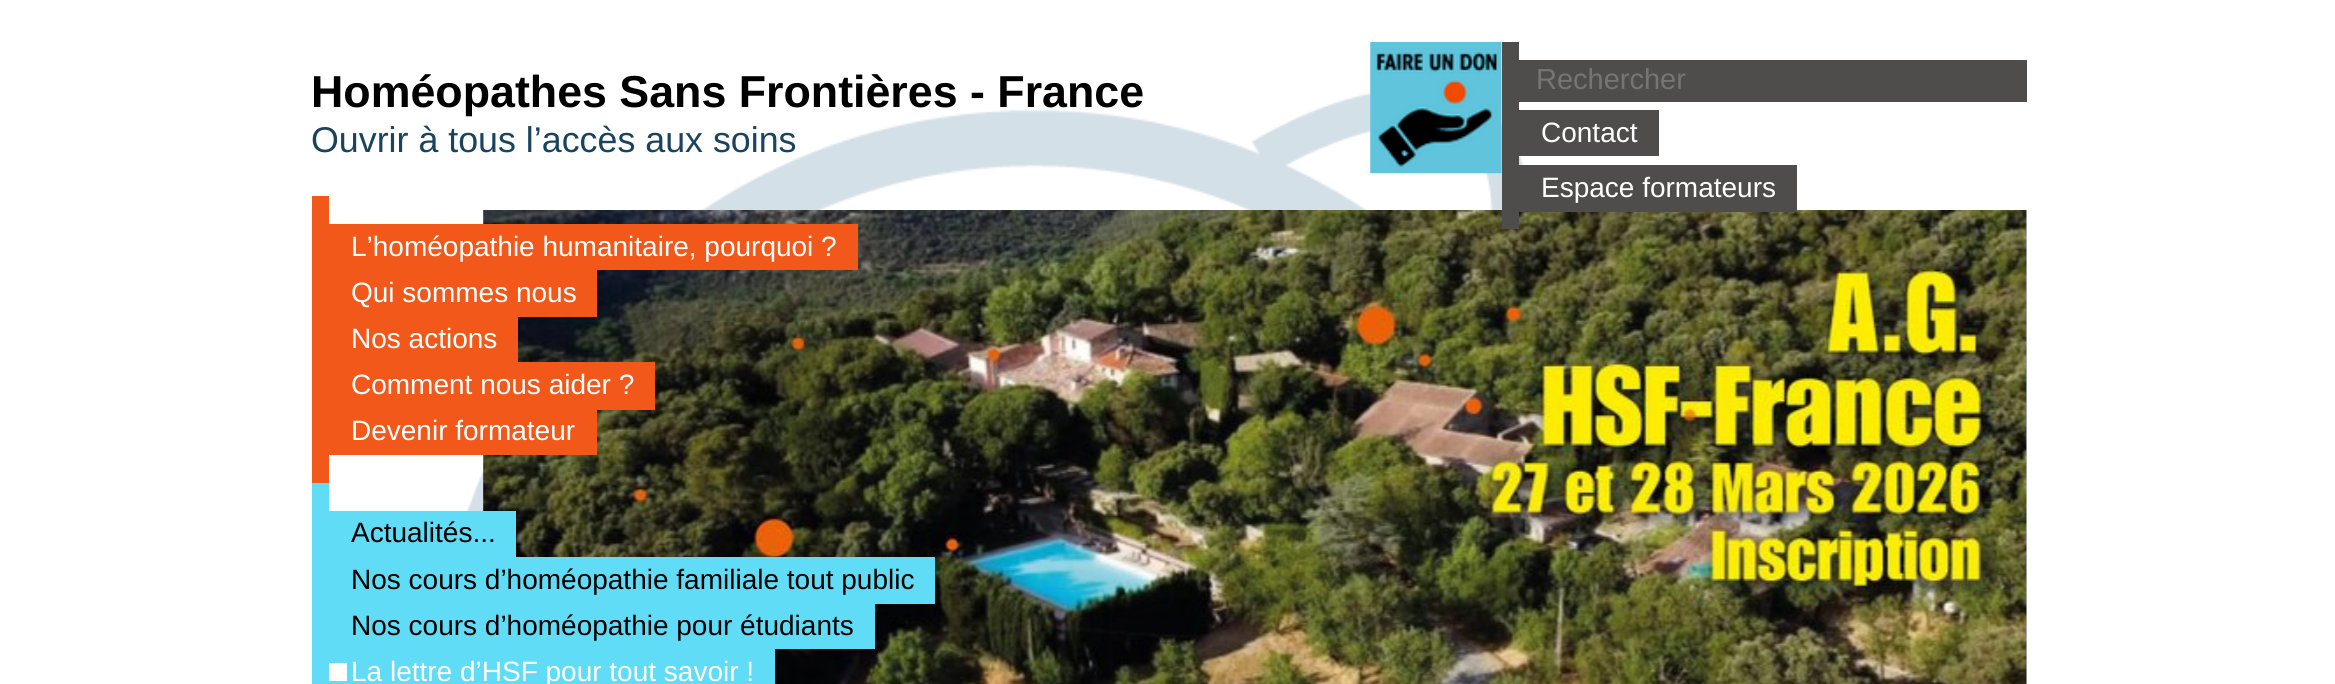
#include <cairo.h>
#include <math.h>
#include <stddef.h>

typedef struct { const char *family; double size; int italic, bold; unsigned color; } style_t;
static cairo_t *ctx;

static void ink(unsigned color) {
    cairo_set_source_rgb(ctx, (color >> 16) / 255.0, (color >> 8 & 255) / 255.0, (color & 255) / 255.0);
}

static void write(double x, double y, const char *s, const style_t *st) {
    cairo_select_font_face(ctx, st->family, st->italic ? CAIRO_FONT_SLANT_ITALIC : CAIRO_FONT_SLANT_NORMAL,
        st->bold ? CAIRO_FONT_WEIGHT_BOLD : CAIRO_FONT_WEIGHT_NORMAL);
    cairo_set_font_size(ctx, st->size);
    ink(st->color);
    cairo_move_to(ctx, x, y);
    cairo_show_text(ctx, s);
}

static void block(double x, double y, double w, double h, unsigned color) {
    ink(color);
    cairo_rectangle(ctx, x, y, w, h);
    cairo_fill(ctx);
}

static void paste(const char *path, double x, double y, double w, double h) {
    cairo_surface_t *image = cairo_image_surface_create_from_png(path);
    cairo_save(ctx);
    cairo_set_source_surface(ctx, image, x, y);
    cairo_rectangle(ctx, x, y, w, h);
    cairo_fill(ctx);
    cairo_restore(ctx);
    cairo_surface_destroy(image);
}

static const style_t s1 = {"Liberation Sans", 29, 0, 0, 0x757575};
static const style_t s2 = {"Liberation Sans", 28, 0, 0, 0xffffff};
static const style_t s3 = {"Liberation Sans", 28, 0, 0, 0x000000};
static const style_t s4 = {"Liberation Sans", 44.75, 0, 1, 0x000000};
static const style_t s5 = {"Liberation Sans", 35.8, 0, 0, 0x1a435e};

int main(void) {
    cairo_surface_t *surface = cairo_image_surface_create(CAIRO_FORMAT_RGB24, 2335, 684);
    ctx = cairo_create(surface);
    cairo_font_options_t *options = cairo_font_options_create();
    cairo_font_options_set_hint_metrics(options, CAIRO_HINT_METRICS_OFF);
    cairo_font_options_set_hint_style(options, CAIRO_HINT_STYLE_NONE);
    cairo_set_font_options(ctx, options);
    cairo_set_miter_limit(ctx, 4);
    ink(0xffffff);
    cairo_paint(ctx);
    paste("pic1.png", 466, 92, 1058, 419);
    paste("pic2.png", 483, 210, 1544, 474);
    block(1502, 42, 17, 187, 0x4f4c4c);
    block(1519, 60, 508, 42, 0x4f4c4c);
    write(1536, 89, "Rechercher", &s1);
    block(1519, 110, 140, 46, 0x4f4c4c);
    write(1541, 142, "Contact", &s2);
    block(1519, 165, 278, 47, 0x4f4c4c);
    write(1541, 197, "Espace formateurs", &s2);
    paste("pic3.png", 2025, 210, 2, 474);
    block(312, 196, 17, 287, 0xf2581a);
    block(329, 224, 529, 46, 0xf2581a);
    write(351, 256, "L’homéopathie humanitaire, pourquoi ?", &s2);
    block(329, 270, 268, 47, 0xf2581a);
    write(351, 302, "Qui sommes nous", &s2);
    block(329, 317, 189, 45, 0xf2581a);
    write(351, 348, "Nos actions", &s2);
    block(329, 362, 326, 48, 0xf2581a);
    write(351, 394, "Comment nous aider ?", &s2);
    block(329, 410, 268, 45, 0xf2581a);
    write(351, 440, "Devenir formateur", &s2);
    block(312, 483, 17, 201, 0x61dcf6);
    block(329, 511, 187, 46, 0x61dcf6);
    write(351, 542, "Actualités...", &s3);
    block(329, 557, 606, 47, 0x61dcf6);
    write(351, 589, "Nos cours d’homéopathie familiale tout public", &s3);
    block(329, 604, 546, 45, 0x61dcf6);
    write(351, 635, "Nos cours d’homéopathie pour étudiants", &s3);
    block(329, 649, 446, 35, 0x61dcf6);
    block(329, 663, 18, 18, 0xffffff);
    write(351, 681, "La lettre d’HSF pour tout savoir !", &s2);
    write(311, 107, "Homéopathes Sans Frontières - France", &s4);
    write(311, 152, "Ouvrir à tous l’accès aux soins", &s5);
    paste("pic4.png", 1370, 42, 132, 132);
    cairo_surface_write_to_png(surface, "screenshot.png");
    cairo_font_options_destroy(options);
    cairo_destroy(ctx);
    cairo_surface_destroy(surface);
    return 0;
}
